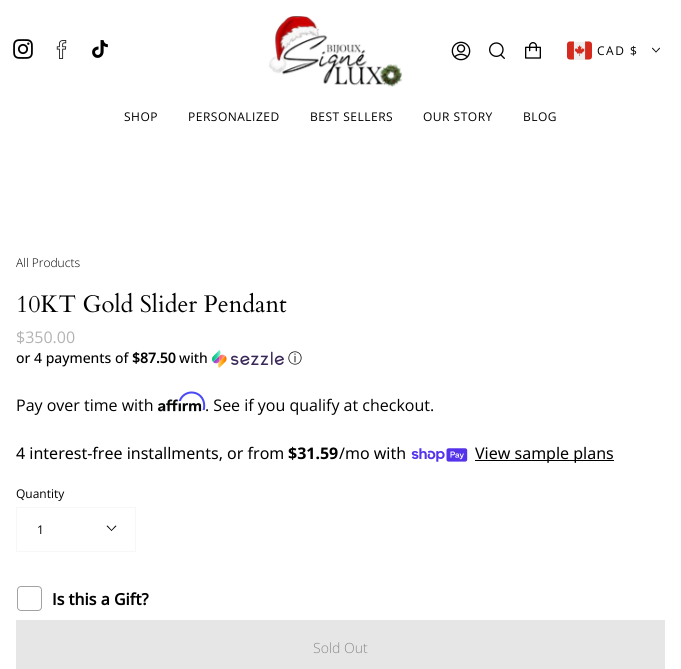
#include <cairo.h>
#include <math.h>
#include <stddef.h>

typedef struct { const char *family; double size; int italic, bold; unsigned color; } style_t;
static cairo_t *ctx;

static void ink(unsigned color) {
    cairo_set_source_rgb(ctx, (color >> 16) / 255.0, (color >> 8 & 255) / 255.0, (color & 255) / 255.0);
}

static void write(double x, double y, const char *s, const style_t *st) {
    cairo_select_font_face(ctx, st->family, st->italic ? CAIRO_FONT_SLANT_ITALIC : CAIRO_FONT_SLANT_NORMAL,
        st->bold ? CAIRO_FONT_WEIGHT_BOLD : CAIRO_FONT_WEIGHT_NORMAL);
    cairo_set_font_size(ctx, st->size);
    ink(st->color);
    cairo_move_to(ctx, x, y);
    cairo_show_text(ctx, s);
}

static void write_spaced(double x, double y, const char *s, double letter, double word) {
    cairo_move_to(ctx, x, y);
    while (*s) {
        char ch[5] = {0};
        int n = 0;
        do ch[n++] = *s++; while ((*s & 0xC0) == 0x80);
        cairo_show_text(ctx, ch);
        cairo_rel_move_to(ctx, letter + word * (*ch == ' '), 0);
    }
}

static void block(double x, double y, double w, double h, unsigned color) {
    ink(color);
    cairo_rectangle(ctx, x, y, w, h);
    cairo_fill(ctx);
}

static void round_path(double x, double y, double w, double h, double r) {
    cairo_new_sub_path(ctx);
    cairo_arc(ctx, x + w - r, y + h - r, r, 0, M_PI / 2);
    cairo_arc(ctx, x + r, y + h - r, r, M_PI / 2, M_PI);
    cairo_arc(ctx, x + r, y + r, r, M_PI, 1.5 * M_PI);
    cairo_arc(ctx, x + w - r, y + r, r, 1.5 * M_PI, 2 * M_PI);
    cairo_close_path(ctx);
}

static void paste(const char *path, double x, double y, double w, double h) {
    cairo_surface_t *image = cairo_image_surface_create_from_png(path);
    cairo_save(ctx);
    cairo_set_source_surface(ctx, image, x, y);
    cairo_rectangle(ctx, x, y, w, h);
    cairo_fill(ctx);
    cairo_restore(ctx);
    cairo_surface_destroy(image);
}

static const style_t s1 = {"Open Sans Light", 12, 0, 0, 0x000000};
static const style_t s2 = {"Cardo", 24, 0, 0, 0x000000};
static const style_t s3 = {"Open Sans", 16, 0, 0, 0xb3b3b3};
static const style_t s4 = {"Open Sans Medium", 14, 0, 0, 0x000000};
static const style_t s5 = {"Open Sans", 14, 0, 1, 0x000000};
static const style_t s6 = {"WenQuanYi Zen Hei Medium", 14, 0, 0, 0x000000};
static const style_t s7 = {"Open Sans", 16, 0, 0, 0x000000};
static const style_t s8 = {"Noto Sans", 16, 0, 0, 0x000000};
static const style_t s9 = {"Noto Sans", 16, 0, 1, 0x000000};
static const style_t s10 = {"Open Sans", 12, 0, 0, 0x000000};
static const style_t s11 = {"Open Sans", 16, 0, 1, 0x000000};
static const style_t s12 = {"Open Sans Light", 14, 0, 0, 0x8a8a8a};

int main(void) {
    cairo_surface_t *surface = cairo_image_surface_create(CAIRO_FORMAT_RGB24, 681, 669);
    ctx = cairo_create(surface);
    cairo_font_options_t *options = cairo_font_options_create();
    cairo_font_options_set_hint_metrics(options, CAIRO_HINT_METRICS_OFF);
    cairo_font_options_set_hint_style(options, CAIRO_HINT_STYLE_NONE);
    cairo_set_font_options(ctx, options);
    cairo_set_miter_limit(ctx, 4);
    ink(0xffffff);
    cairo_paint(ctx);
    paste("pic1.png", 13, 39, 20, 20);
    paste("pic2.png", 56, 40, 11, 19);
    paste("pic3.png", 92, 40, 16, 18);
    paste("pic4.png", 268, 16, 135, 71);
    paste("pic5.png", 451, 41, 20, 20);
    paste("pic6.png", 489, 42, 16, 17);
    paste("pic7.png", 525, 42, 16, 17);
    paste("pic8.png", 567, 41, 25, 19);
    cairo_select_font_face(ctx, "Open Sans", CAIRO_FONT_SLANT_NORMAL, CAIRO_FONT_WEIGHT_NORMAL);
    cairo_set_font_size(ctx, 12);
    ink(0x000000);
    write_spaced(597, 55, "CAD $", 1.5, 0);
    cairo_new_path(ctx);
    cairo_move_to(ctx, 655.5, 52);
    cairo_line_to(ctx, 659.5, 47.5);
    cairo_line_to(ctx, 660, 48.5);
    cairo_line_to(ctx, 656, 52.5);
    cairo_close_path(ctx);
    cairo_fill(ctx);
    cairo_new_path(ctx);
    cairo_move_to(ctx, 652, 48.5);
    cairo_line_to(ctx, 652.5, 47.5);
    cairo_line_to(ctx, 656.5, 52);
    cairo_line_to(ctx, 656, 52.5);
    cairo_close_path(ctx);
    cairo_fill(ctx);
    write_spaced(124, 121, "SHOP", 0.5, 0);
    write_spaced(188, 121, "PERSONALIZED", 0.5, 0);
    write_spaced(310, 121, "BEST SELLERS", 0.5, 0);
    write_spaced(423, 121, "OUR STORY", 0.5, 0);
    write_spaced(523, 121, "BLOG", 0.5, 0);
    write(16, 267, "All Products", &s1);
    write(16, 312, "10KT Gold Slider Pendant", &s2);
    write(16, 343, "$350.00", &s3);
    write(16, 363, "or 4 payments of", &s4);
    write(132, 363, "$87.50", &s5);
    write(179, 363, "with", &s4);
    paste("pic9.png", 212, 350, 72, 18);
    write(288, 363, "ⓘ", &s6);
    write(16, 411, "Pay over time with", &s7);
    paste("pic11.png", 158, 399, 44, 13);
    paste("pic10.png", 178, 391, 28, 20);
    write(205, 411, ". See if you qualify at checkout.", &s7);
    write(16, 459, "4 interest-free installments, or from", &s8);
    write(288, 459, "$31.59", &s9);
    write(339, 459, "/mo with", &s8);
    paste("pic12.png", 411, 448, 57, 14);
    block(475, 460, 139, 1, 0x000000);
    write(475, 459, "View sample plans", &s8);
    write(16, 498, "Quantity", &s10);
    cairo_rectangle(ctx, 16.5, 507.5, 119, 44);
    ink(0xf7f7f7);
    cairo_set_line_width(ctx, 1);
    cairo_stroke(ctx);
    write(37, 534, "1", &s10);
    cairo_new_path(ctx);
    cairo_move_to(ctx, 111, 530.5);
    cairo_line_to(ctx, 115.5, 525.5);
    cairo_line_to(ctx, 116.5, 526);
    cairo_line_to(ctx, 111.5, 531);
    cairo_close_path(ctx);
    cairo_fill(ctx);
    cairo_new_path(ctx);
    cairo_move_to(ctx, 106.5, 526);
    cairo_line_to(ctx, 107.5, 525.5);
    cairo_line_to(ctx, 112, 530.5);
    cairo_line_to(ctx, 111.5, 531);
    cairo_close_path(ctx);
    cairo_fill(ctx);
    round_path(17.5, 586.5, 24, 24, 3.5);
    ink(0xa2a2a2);
    cairo_stroke(ctx);
    write(52, 605, "Is this a Gift?", &s11);
    block(16, 620, 649, 49, 0xe6e6e6);
    write(313, 653, "Sold Out", &s12);
    cairo_surface_write_to_png(surface, "screenshot.png");
    cairo_font_options_destroy(options);
    cairo_destroy(ctx);
    cairo_surface_destroy(surface);
    return 0;
}
